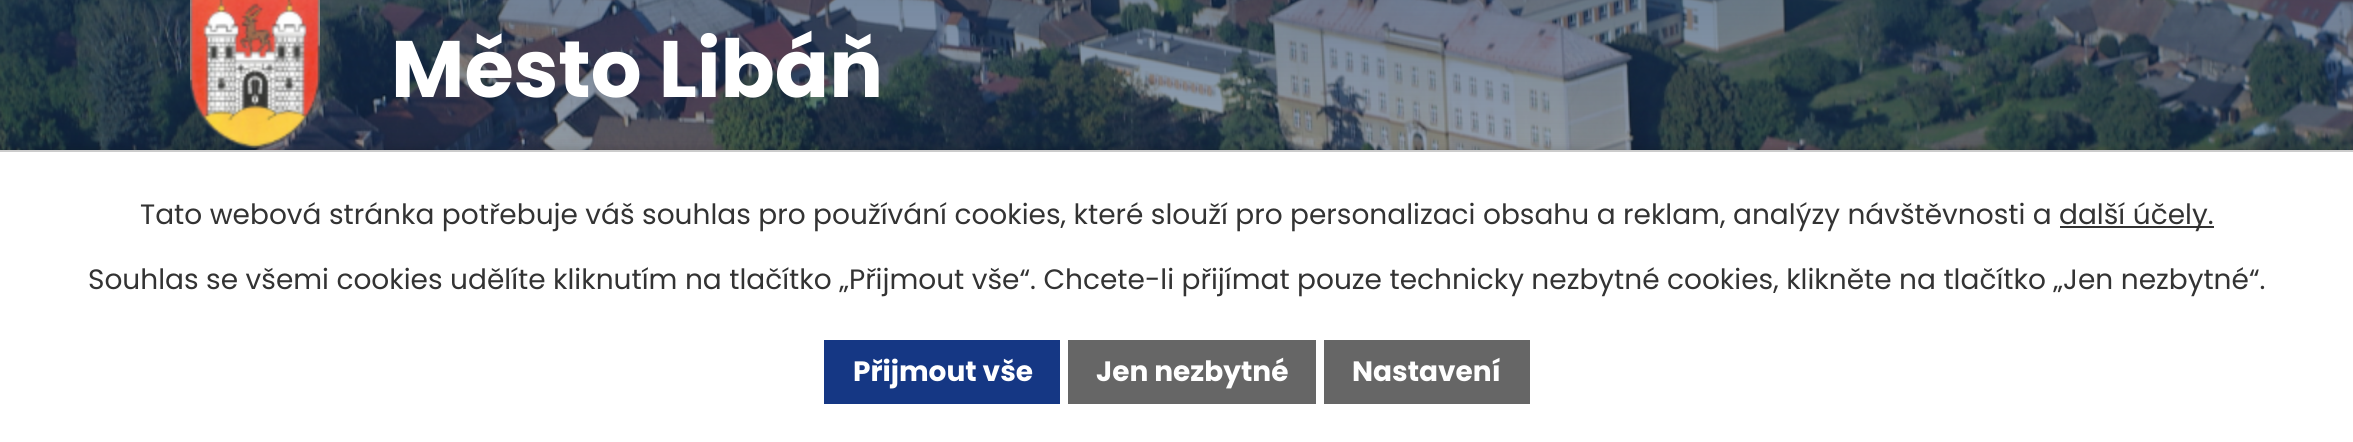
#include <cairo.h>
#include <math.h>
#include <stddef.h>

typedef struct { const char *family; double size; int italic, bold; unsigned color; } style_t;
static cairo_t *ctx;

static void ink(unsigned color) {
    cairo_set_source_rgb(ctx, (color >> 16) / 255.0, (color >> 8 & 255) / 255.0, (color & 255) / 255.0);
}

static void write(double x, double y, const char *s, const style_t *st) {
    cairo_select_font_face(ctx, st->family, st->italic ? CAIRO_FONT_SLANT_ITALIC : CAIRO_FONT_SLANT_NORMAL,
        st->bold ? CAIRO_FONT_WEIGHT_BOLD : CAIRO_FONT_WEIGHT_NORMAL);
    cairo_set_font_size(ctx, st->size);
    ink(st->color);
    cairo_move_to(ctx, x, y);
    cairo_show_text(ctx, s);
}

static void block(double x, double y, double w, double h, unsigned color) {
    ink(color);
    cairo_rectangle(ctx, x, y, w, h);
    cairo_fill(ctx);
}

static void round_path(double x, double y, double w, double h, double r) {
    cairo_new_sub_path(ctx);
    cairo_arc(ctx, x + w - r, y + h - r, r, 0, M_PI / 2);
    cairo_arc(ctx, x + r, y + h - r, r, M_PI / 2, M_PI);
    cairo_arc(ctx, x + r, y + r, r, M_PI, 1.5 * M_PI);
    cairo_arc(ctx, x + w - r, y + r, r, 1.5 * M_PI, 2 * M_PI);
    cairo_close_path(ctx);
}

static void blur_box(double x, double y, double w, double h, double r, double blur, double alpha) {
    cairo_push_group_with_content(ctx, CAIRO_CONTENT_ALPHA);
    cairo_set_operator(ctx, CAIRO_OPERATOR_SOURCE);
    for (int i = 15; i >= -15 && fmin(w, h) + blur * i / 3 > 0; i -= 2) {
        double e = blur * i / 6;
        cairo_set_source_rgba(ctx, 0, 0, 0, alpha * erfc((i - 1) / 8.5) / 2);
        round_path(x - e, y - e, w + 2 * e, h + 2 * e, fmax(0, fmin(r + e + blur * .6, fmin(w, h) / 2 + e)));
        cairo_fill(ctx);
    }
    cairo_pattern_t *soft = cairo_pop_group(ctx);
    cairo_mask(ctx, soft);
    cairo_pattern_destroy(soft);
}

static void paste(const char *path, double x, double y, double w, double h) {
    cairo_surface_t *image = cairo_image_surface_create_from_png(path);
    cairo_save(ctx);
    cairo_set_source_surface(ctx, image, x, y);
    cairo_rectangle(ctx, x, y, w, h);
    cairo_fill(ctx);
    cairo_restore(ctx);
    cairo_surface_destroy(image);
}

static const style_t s1 = {"Poppins", 80, 0, 1, 0xffffff};
static const style_t s2 = {"Poppins", 28, 0, 0, 0x333333};
static const style_t s3 = {"Poppins", 28, 0, 1, 0xffffff};

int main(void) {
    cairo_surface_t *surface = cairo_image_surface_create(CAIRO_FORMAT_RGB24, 2353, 442);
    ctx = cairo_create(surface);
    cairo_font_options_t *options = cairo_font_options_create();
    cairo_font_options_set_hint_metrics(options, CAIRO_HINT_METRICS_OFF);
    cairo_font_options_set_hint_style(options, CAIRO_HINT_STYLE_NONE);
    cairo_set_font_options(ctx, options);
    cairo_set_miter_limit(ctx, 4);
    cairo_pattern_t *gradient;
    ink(0xffffff);
    cairo_paint(ctx);
    paste("pic1.png", 0, 0, 2353, 150);
    gradient = cairo_pattern_create_linear(1177, -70, 1177, 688);
    cairo_pattern_add_color_stop_rgba(gradient, 0, 0.071, 0.192, 0.353, 0.63);
    cairo_pattern_add_color_stop_rgba(gradient, 1, 0.071, 0.192, 0.353, 0);
    cairo_set_source(ctx, gradient);
    cairo_pattern_destroy(gradient);
    cairo_rectangle(ctx, 0, 0, 2353, 150);
    cairo_fill(ctx);
    paste("pic2.png", 190, 0, 130, 148);
    write(391, 97, "Město Libáň", &s1);
    ink(0x000000);
    blur_box(0, 150, 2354, 292, 0, 5, 0.2);
    block(0, 152, 2353, 290, 0xffffff);
    block(0, 150, 2353, 2, 0xcccccc);
    write(140, 224, "Tato webová stránka potřebuje váš souhlas pro používání cookies, které slouží pro personalizaci obsahu a reklam, analýzy návštěvnosti a", &s2);
    block(2060, 226, 154, 2, 0x333333);
    write(2059, 224, "další účely.", &s2);
    write(88, 289, "Souhlas se všemi cookies udělíte kliknutím na tlačítko „Přijmout vše“. Chcete-li přijímat pouze technicky nezbytné cookies, klikněte na tlačítko „Jen nezbytné“.", &s2);
    block(824, 340, 236, 64, 0x153784);
    write(853, 381, "Přijmout vše", &s3);
    block(1068, 340, 248, 64, 0x666666);
    write(1096, 381, "Jen nezbytné", &s3);
    block(1324, 340, 206, 64, 0x666666);
    write(1352, 381, "Nastavení", &s3);
    cairo_surface_write_to_png(surface, "screenshot.png");
    cairo_font_options_destroy(options);
    cairo_destroy(ctx);
    cairo_surface_destroy(surface);
    return 0;
}
